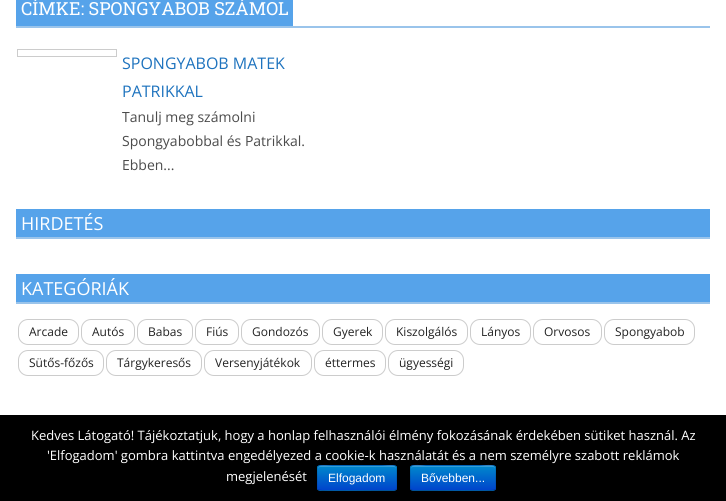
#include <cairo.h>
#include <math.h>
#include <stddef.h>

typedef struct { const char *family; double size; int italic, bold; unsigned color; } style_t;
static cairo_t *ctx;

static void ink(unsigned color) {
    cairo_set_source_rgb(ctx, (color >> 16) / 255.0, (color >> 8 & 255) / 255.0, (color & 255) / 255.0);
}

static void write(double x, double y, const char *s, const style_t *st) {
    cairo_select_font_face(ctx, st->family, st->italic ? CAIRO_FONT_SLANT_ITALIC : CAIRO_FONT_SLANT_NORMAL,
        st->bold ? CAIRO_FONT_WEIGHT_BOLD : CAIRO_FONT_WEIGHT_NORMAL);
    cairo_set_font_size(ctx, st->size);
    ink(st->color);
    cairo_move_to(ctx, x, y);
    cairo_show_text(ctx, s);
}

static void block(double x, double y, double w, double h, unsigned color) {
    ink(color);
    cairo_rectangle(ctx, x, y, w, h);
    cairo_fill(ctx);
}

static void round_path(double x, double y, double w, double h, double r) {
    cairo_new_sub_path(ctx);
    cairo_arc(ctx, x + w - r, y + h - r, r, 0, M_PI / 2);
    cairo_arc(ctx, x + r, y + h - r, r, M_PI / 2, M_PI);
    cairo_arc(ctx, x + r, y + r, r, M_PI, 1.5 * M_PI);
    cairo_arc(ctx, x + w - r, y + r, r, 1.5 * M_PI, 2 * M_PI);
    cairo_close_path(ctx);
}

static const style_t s1 = {"Roboto Slab", 18, 0, 0, 0xffffff};
static const style_t s2 = {"Open Sans", 16, 0, 0, 0x1e73be};
static const style_t s3 = {"Open Sans", 14, 0, 0, 0x4b4b4b};
static const style_t s4 = {"Open Sans", 18, 0, 0, 0xffffff};
static const style_t s5 = {"Open Sans", 12, 0, 0, 0x222222};
static const style_t s6 = {"Open Sans", 13, 0, 0, 0xffffff};
static const style_t s7 = {"Liberation Sans", 12, 0, 0, 0xffffff};

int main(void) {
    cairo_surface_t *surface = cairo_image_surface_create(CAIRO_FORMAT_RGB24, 726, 501);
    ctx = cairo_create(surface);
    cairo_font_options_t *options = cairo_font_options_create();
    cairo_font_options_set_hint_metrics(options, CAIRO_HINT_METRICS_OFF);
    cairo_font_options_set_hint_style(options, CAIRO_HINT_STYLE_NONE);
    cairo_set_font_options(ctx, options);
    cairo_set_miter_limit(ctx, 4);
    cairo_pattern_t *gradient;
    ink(0xffffff);
    cairo_paint(ctx);
    block(16, 0, 277, 26, 0x56a3ea);
    write(21, 15, "CÍMKE: SPONGYABOB SZÁMOL", &s1);
    block(16, 26, 694, 2, 0x9ac4eb);
    cairo_rectangle(ctx, 17.5, 49.5, 99, 7);
    ink(0xcccccc);
    cairo_set_line_width(ctx, 1);
    cairo_stroke(ctx);
    write(122, 69, "SPONGYABOB MATEK", &s2);
    write(122, 97, "PATRIKKAL", &s2);
    write(122, 122, "Tanulj meg számolni", &s3);
    write(122, 146, "Spongyabobbal és Patrikkal.", &s3);
    write(122, 170, "Ebben...", &s3);
    block(16, 209, 694, 28, 0x56a3ea);
    write(21, 230, "HIRDETÉS", &s4);
    block(16, 237, 694, 2, 0x9ac4eb);
    block(16, 274, 694, 28, 0x56a3ea);
    write(21, 295, "KATEGÓRIÁK", &s4);
    block(16, 302, 694, 2, 0x9ac4eb);
    round_path(18.5, 319.5, 60, 25, 9.5);
    ink(0xcccccc);
    cairo_stroke(ctx);
    write(29, 336, "Arcade", &s5);
    round_path(81.5, 319.5, 53, 25, 9.5);
    ink(0xcccccc);
    cairo_stroke(ctx);
    write(92, 336, "Autós", &s5);
    round_path(137.5, 319.5, 55, 25, 9.5);
    ink(0xcccccc);
    cairo_stroke(ctx);
    write(148, 336, "Babas", &s5);
    round_path(195.5, 319.5, 43, 25, 9.5);
    ink(0xcccccc);
    cairo_stroke(ctx);
    write(206, 336, "Fiús", &s5);
    round_path(241.5, 319.5, 78, 25, 9.5);
    ink(0xcccccc);
    cairo_stroke(ctx);
    write(252, 336, "Gondozós", &s5);
    round_path(322.5, 319.5, 60, 25, 9.5);
    ink(0xcccccc);
    cairo_stroke(ctx);
    write(333, 336, "Gyerek", &s5);
    round_path(385.5, 319.5, 82, 25, 9.5);
    ink(0xcccccc);
    cairo_stroke(ctx);
    write(396, 336, "Kiszolgálós", &s5);
    round_path(470.5, 319.5, 60, 25, 9.5);
    ink(0xcccccc);
    cairo_stroke(ctx);
    write(481, 336, "Lányos", &s5);
    round_path(533.5, 319.5, 68, 25, 9.5);
    ink(0xcccccc);
    cairo_stroke(ctx);
    write(544, 336, "Orvosos", &s5);
    round_path(604.5, 319.5, 90, 25, 9.5);
    ink(0xcccccc);
    cairo_stroke(ctx);
    write(615, 336, "Spongyabob", &s5);
    round_path(18.5, 350.5, 85, 25, 9.5);
    ink(0xcccccc);
    cairo_stroke(ctx);
    write(29, 367, "Sütős-főzős", &s5);
    round_path(106.5, 350.5, 95, 25, 9.5);
    ink(0xcccccc);
    cairo_stroke(ctx);
    write(117, 367, "Tárgykeresős", &s5);
    round_path(204.5, 350.5, 107, 25, 9.5);
    ink(0xcccccc);
    cairo_stroke(ctx);
    write(215, 367, "Versenyjátékok", &s5);
    round_path(314.5, 350.5, 71, 25, 9.5);
    ink(0xcccccc);
    cairo_stroke(ctx);
    write(325, 367, "éttermes", &s5);
    round_path(388.5, 350.5, 75, 25, 9.5);
    ink(0xcccccc);
    cairo_stroke(ctx);
    write(399, 367, "ügyességi", &s5);
    block(0, 415, 726, 86, 0x000000);
    write(31, 440, "Kedves Látogató! Tájékoztatjuk, hogy a honlap felhasználói élmény fokozásának érdekében sütiket használ. Az", &s6);
    write(47, 460, "'Elfogadom' gombra kattintva engedélyezed a cookie-k használatát és a nem személyre szabott reklámok", &s6);
    write(226, 481, "megjelenését", &s6);
    ink(0x006dcc);
    round_path(317, 465, 80, 26, 3);
    cairo_fill(ctx);
    cairo_save(ctx);
    round_path(317, 465, 80, 26, 3);
    cairo_clip(ctx);
    gradient = cairo_pattern_create_linear(357, 466, 357, 490);
    cairo_pattern_add_color_stop_rgba(gradient, 0, 0, 0.533, 0.8, 1);
    cairo_pattern_add_color_stop_rgba(gradient, 1, 0, 0.267, 0.8, 1);
    cairo_set_source(ctx, gradient);
    cairo_pattern_destroy(gradient);
    cairo_rectangle(ctx, 317, 466, 80, 24);
    cairo_fill(ctx);
    cairo_restore(ctx);
    cairo_set_source_rgba(ctx, 1, 1, 1, 0.2);
    cairo_new_path(ctx);
    cairo_move_to(ctx, 320, 467);
    cairo_line_to(ctx, 394, 467);
    cairo_curve_to(ctx, 395, 467, 396, 468, 396, 469);
    cairo_curve_to(ctx, 396, 463, 385, 466, 382, 466);
    cairo_line_to(ctx, 332, 466);
    cairo_curve_to(ctx, 329, 466, 318, 463, 318, 469);
    cairo_curve_to(ctx, 318, 468, 319, 467, 320, 467);
    cairo_close_path(ctx);
    cairo_fill(ctx);
    cairo_new_path(ctx);
    cairo_move_to(ctx, 396, 490);
    cairo_line_to(ctx, 394, 490.5);
    cairo_line_to(ctx, 381.5, 490.5);
    cairo_curve_to(ctx, 375, 490.5, 320.5, 491.5, 318.5, 490);
    cairo_line_to(ctx, 318, 490);
    cairo_set_source_rgba(ctx, 0, 0, 0, 0.25);
    cairo_stroke(ctx);
    cairo_new_path(ctx);
    cairo_move_to(ctx, 318, 490);
    cairo_curve_to(ctx, 316.5, 488, 317.5, 483.5, 317.5, 481.5);
    cairo_curve_to(ctx, 317.5, 463, 314, 465.5, 332.5, 465.5);
    cairo_line_to(ctx, 381.5, 465.5);
    cairo_curve_to(ctx, 398.5, 465.5, 396.5, 462.5, 396.5, 478);
    cairo_curve_to(ctx, 396.5, 480.5, 397.5, 488, 396, 490);
    cairo_set_source_rgba(ctx, 0, 0, 0, 0.1);
    cairo_stroke(ctx);
    write(328, 482, "Elfogadom", &s7);
    ink(0x006dcc);
    round_path(410, 465, 86, 26, 3);
    cairo_fill(ctx);
    cairo_save(ctx);
    round_path(410, 465, 86, 26, 3);
    cairo_clip(ctx);
    gradient = cairo_pattern_create_linear(453, 466, 453, 490);
    cairo_pattern_add_color_stop_rgba(gradient, 0, 0, 0.533, 0.8, 1);
    cairo_pattern_add_color_stop_rgba(gradient, 1, 0, 0.267, 0.8, 1);
    cairo_set_source(ctx, gradient);
    cairo_pattern_destroy(gradient);
    cairo_rectangle(ctx, 410, 466, 86, 24);
    cairo_fill(ctx);
    cairo_restore(ctx);
    cairo_set_source_rgba(ctx, 1, 1, 1, 0.2);
    cairo_new_path(ctx);
    cairo_move_to(ctx, 413, 467);
    cairo_line_to(ctx, 493, 467);
    cairo_curve_to(ctx, 494, 467, 495, 468, 495, 469);
    cairo_curve_to(ctx, 495, 462, 482, 466, 480, 466);
    cairo_line_to(ctx, 426, 466);
    cairo_curve_to(ctx, 424, 466, 411, 462, 411, 469);
    cairo_curve_to(ctx, 411, 468, 412, 467, 413, 467);
    cairo_close_path(ctx);
    cairo_fill(ctx);
    cairo_new_path(ctx);
    cairo_move_to(ctx, 495, 490);
    cairo_line_to(ctx, 494.5, 490);
    cairo_curve_to(ctx, 492.5, 491.5, 433.5, 490.5, 426.5, 490.5);
    cairo_line_to(ctx, 413, 490.5);
    cairo_line_to(ctx, 411, 490);
    cairo_set_source_rgba(ctx, 0, 0, 0, 0.25);
    cairo_stroke(ctx);
    cairo_new_path(ctx);
    cairo_move_to(ctx, 411, 490);
    cairo_curve_to(ctx, 409.5, 488, 410.5, 483.5, 410.5, 481.5);
    cairo_curve_to(ctx, 410.5, 462.5, 407, 465.5, 426.5, 465.5);
    cairo_line_to(ctx, 479.5, 465.5);
    cairo_curve_to(ctx, 499, 465.5, 495.5, 462.5, 495.5, 481.5);
    cairo_curve_to(ctx, 495.5, 483.5, 496.5, 488, 495, 490);
    cairo_set_source_rgba(ctx, 0, 0, 0, 0.1);
    cairo_stroke(ctx);
    write(421, 482, "Bővebben...", &s7);
    cairo_surface_write_to_png(surface, "screenshot.png");
    cairo_font_options_destroy(options);
    cairo_destroy(ctx);
    cairo_surface_destroy(surface);
    return 0;
}
